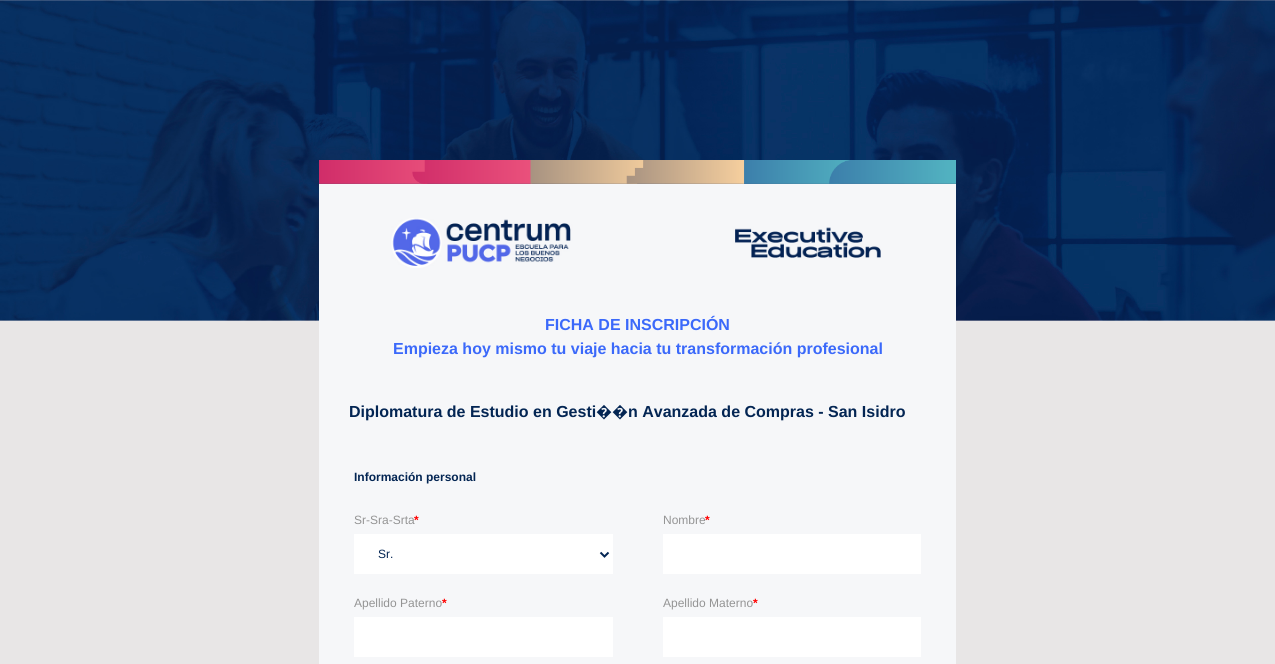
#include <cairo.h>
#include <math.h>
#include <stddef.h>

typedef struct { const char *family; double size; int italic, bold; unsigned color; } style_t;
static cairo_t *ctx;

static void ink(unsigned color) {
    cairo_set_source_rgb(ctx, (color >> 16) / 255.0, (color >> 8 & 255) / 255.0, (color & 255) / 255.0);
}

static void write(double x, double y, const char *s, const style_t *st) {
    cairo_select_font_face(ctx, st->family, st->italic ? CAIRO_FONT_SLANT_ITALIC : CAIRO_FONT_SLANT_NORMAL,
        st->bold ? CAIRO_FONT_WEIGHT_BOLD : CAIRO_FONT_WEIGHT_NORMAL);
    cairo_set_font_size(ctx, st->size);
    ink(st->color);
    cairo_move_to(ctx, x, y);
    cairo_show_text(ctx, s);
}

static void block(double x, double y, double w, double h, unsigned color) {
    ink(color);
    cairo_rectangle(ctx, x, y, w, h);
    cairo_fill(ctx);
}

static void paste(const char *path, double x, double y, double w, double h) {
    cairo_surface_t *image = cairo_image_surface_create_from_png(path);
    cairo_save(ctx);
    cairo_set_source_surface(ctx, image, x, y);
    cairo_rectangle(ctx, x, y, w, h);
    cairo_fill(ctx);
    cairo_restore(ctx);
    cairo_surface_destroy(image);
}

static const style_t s1 = {"Liberation Sans", 16, 0, 1, 0x3b69fa};
static const style_t s2 = {"Liberation Sans", 16, 0, 1, 0x032553};
static const style_t s3 = {"Noto Sans", 16, 0, 1, 0x032553};
static const style_t s4 = {"Liberation Sans", 12, 0, 1, 0x032553};
static const style_t s5 = {"Liberation Sans", 12, 0, 0, 0x949494};
static const style_t s6 = {"Liberation Sans", 12, 0, 1, 0xff0000};
static const style_t s7 = {"Liberation Sans", 12, 0, 0, 0x032553};

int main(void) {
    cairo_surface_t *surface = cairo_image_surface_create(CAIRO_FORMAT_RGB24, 1275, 664);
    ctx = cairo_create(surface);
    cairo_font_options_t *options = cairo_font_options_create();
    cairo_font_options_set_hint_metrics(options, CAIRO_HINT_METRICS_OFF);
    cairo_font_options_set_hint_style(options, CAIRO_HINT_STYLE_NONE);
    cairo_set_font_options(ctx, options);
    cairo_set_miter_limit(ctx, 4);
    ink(0xe8e6e6);
    cairo_paint(ctx);
    paste("pic1.png", 0, 0, 1275, 321);
    paste("pic2.png", 319, 160, 637, 24);
    block(319, 184, 637, 480, 0xf6f7f9);
    paste("pic3.png", 391, 218, 490, 50);
    write(545, 330, "FICHA DE INSCRIPCIÓN", &s1);
    write(393, 354, "Empieza hoy mismo tu viaje hacia tu transformación profesional", &s1);
    write(349, 417, "Diplomatura de Estudio en Gesti", &s2);
    write(596, 417, "��", &s3);
    write(628, 417, "n Avanzada de Compras - San Isidro", &s2);
    write(354, 481, "Información personal", &s4);
    write(354, 524, "Sr-Sra-Srta", &s5);
    write(414, 524, "*", &s6);
    block(354, 534, 259, 40, 0xffffff);
    cairo_new_path(ctx);
    cairo_move_to(ctx, 600.5, 552.5);
    cairo_line_to(ctx, 604.5, 556.5);
    cairo_line_to(ctx, 608.5, 552.5);
    ink(0x032553);
    cairo_stroke(ctx);
    write(378, 558, "Sr.", &s7);
    write(663, 524, "Nombre", &s5);
    write(705, 524, "*", &s6);
    block(663, 534, 258, 40, 0xffffff);
    write(354, 607, "Apellido Paterno", &s5);
    write(442, 607, "*", &s6);
    block(354, 617, 259, 40, 0xffffff);
    write(663, 607, "Apellido Materno", &s5);
    write(753, 607, "*", &s6);
    block(663, 617, 258, 40, 0xffffff);
    cairo_surface_write_to_png(surface, "screenshot.png");
    cairo_font_options_destroy(options);
    cairo_destroy(ctx);
    cairo_surface_destroy(surface);
    return 0;
}
